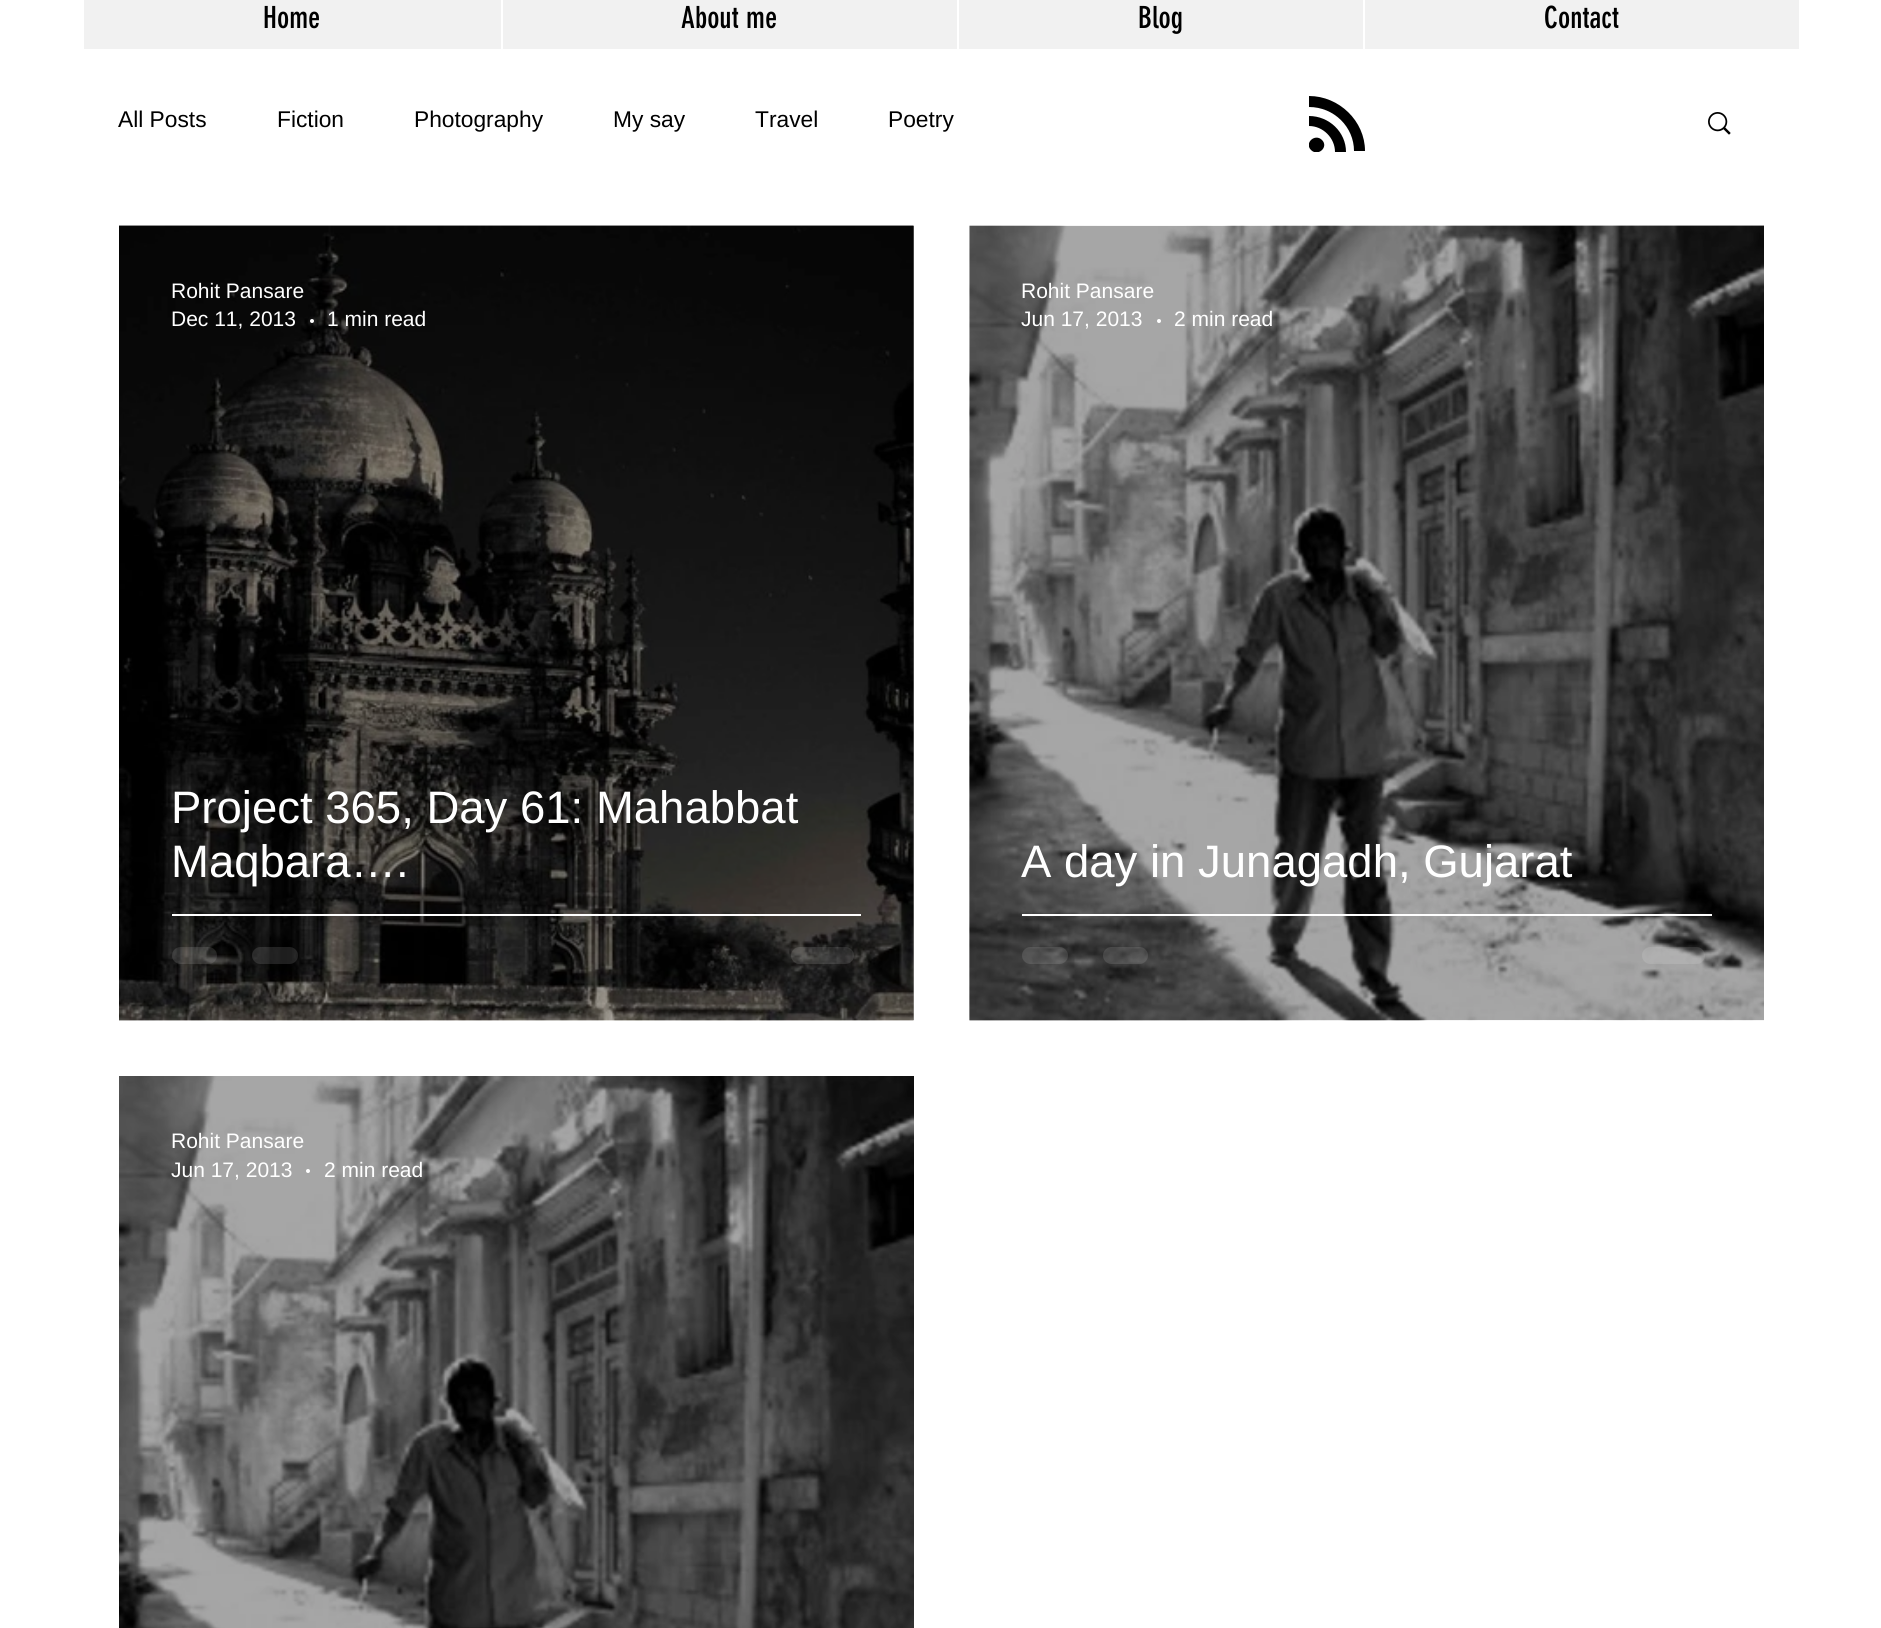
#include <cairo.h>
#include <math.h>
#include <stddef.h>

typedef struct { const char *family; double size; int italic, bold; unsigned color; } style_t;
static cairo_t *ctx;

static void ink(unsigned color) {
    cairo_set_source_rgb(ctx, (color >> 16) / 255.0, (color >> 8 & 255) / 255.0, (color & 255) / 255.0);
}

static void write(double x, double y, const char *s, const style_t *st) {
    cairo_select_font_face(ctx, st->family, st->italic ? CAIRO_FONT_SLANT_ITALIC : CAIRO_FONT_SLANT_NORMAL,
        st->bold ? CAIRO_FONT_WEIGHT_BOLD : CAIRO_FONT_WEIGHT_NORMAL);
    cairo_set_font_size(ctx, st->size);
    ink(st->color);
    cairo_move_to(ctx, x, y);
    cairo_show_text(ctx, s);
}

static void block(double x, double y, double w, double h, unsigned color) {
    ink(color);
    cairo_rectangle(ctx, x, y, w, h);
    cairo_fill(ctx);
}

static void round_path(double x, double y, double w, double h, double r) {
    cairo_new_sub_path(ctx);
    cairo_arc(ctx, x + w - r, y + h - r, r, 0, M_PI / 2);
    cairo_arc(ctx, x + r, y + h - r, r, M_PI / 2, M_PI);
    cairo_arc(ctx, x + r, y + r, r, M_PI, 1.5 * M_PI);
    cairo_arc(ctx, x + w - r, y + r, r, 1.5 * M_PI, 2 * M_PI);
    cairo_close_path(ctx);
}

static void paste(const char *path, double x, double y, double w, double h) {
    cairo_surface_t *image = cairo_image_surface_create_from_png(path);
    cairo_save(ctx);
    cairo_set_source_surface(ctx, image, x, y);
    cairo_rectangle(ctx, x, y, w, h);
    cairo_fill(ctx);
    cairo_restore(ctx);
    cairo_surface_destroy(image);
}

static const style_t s1 = {"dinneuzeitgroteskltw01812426", 30, 0, 0, 0x000000};
static const style_t s2 = {"Liberation Sans", 22.75, 0, 0, 0x000000};
static const style_t s3 = {"Liberation Sans", 21, 0, 0, 0xffffff};
static const style_t s4 = {"Liberation Sans", 45.5, 0, 0, 0xffffff};

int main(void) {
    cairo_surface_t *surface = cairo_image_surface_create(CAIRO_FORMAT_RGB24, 1881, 1628);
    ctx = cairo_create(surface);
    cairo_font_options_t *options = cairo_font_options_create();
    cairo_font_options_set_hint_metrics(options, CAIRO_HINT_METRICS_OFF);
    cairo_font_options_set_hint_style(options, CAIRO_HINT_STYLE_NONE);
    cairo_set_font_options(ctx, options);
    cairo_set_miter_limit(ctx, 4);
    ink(0xffffff);
    cairo_paint(ctx);
    block(84, 0, 1715, 49, 0xf1f1f1);
    write(263, 28, "Home", &s1);
    block(501, 0, 2, 49, 0xffffff);
    write(681, 28, "About me", &s1);
    block(957, 0, 2, 49, 0xffffff);
    write(1138, 28, "Blog", &s1);
    block(1363, 0, 2, 49, 0xffffff);
    write(1544, 28, "Contact", &s1);
    cairo_save(ctx);
    cairo_rectangle(ctx, 1309, 96, 56, 56);
    cairo_clip(ctx);
    cairo_set_fill_rule(ctx, CAIRO_FILL_RULE_EVEN_ODD);
    cairo_new_path(ctx);
    cairo_move_to(ctx, 1309, 116);
    cairo_curve_to(ctx, 1329, 116, 1346, 132, 1346, 152);
    cairo_line_to(ctx, 1335, 152);
    cairo_curve_to(ctx, 1335, 138, 1323, 126, 1309, 126);
    cairo_close_path(ctx);
    cairo_move_to(ctx, 1309, 96);
    cairo_curve_to(ctx, 1339, 96, 1365, 121, 1365, 151);
    cairo_line_to(ctx, 1354, 151);
    cairo_curve_to(ctx, 1354, 127, 1334, 107, 1309, 107);
    cairo_close_path(ctx);
    cairo_move_to(ctx, 1322, 140);
    cairo_curve_to(ctx, 1329, 147, 1318, 157, 1311, 150);
    cairo_curve_to(ctx, 1304, 143, 1315, 133, 1322, 140);
    cairo_close_path(ctx);
    cairo_fill(ctx);
    cairo_restore(ctx);
    write(118, 127, "All Posts", &s2);
    write(277, 127, "Fiction", &s2);
    write(414, 127, "Photography", &s2);
    write(613, 127, "My say", &s2);
    write(755, 127, "Travel", &s2);
    write(888, 127, "Poetry", &s2);
    paste("pic1.png", 1708, 112, 23, 23);
    paste("pic2.png", 119, 225, 795, 796);
    paste("pic3.png", 119, 225, 795, 796);
    write(171, 298, "Rohit Pansare", &s3);
    write(171, 326, "Dec 11, 2013", &s3);
    cairo_new_path(ctx);
    cairo_arc(ctx, 312, 321, 2, 0, 2 * M_PI);
    cairo_fill(ctx);
    write(327, 326, "1 min read", &s3);
    write(171, 823, "Project 365, Day 61: Mahabbat", &s4);
    write(171, 877, "Maqbara….", &s4);
    block(172, 914, 689, 2, 0xffffff);
    cairo_set_source_rgba(ctx, 1, 1, 1, 0.12);
    round_path(172, 947, 45, 17, 8.5);
    cairo_fill(ctx);
    round_path(252, 947, 46, 17, 8.5);
    cairo_fill(ctx);
    round_path(791, 947, 63, 17, 8.5);
    cairo_fill(ctx);
    paste("pic4.png", 969, 225, 795, 796);
    paste("pic5.png", 969, 225, 795, 796);
    write(1021, 298, "Rohit Pansare", &s3);
    write(1021, 326, "Jun 17, 2013", &s3);
    cairo_new_path(ctx);
    cairo_arc(ctx, 1159, 321, 2, 0, 2 * M_PI);
    cairo_fill(ctx);
    write(1174, 326, "2 min read", &s3);
    write(1021, 877, "A day in Junagadh, Gujarat", &s4);
    block(1022, 914, 690, 2, 0xffffff);
    cairo_set_source_rgba(ctx, 1, 1, 1, 0.12);
    round_path(1022, 947, 46, 17, 8.5);
    cairo_fill(ctx);
    round_path(1103, 947, 45, 17, 8.5);
    cairo_fill(ctx);
    round_path(1642, 947, 63, 17, 8.5);
    cairo_fill(ctx);
    paste("pic6.png", 119, 1076, 795, 552);
    write(171, 1148, "Rohit Pansare", &s3);
    write(171, 1177, "Jun 17, 2013", &s3);
    cairo_new_path(ctx);
    cairo_arc(ctx, 308, 1171, 2, 0, 2 * M_PI);
    cairo_fill(ctx);
    write(324, 1177, "2 min read", &s3);
    cairo_surface_write_to_png(surface, "screenshot.png");
    cairo_font_options_destroy(options);
    cairo_destroy(ctx);
    cairo_surface_destroy(surface);
    return 0;
}
